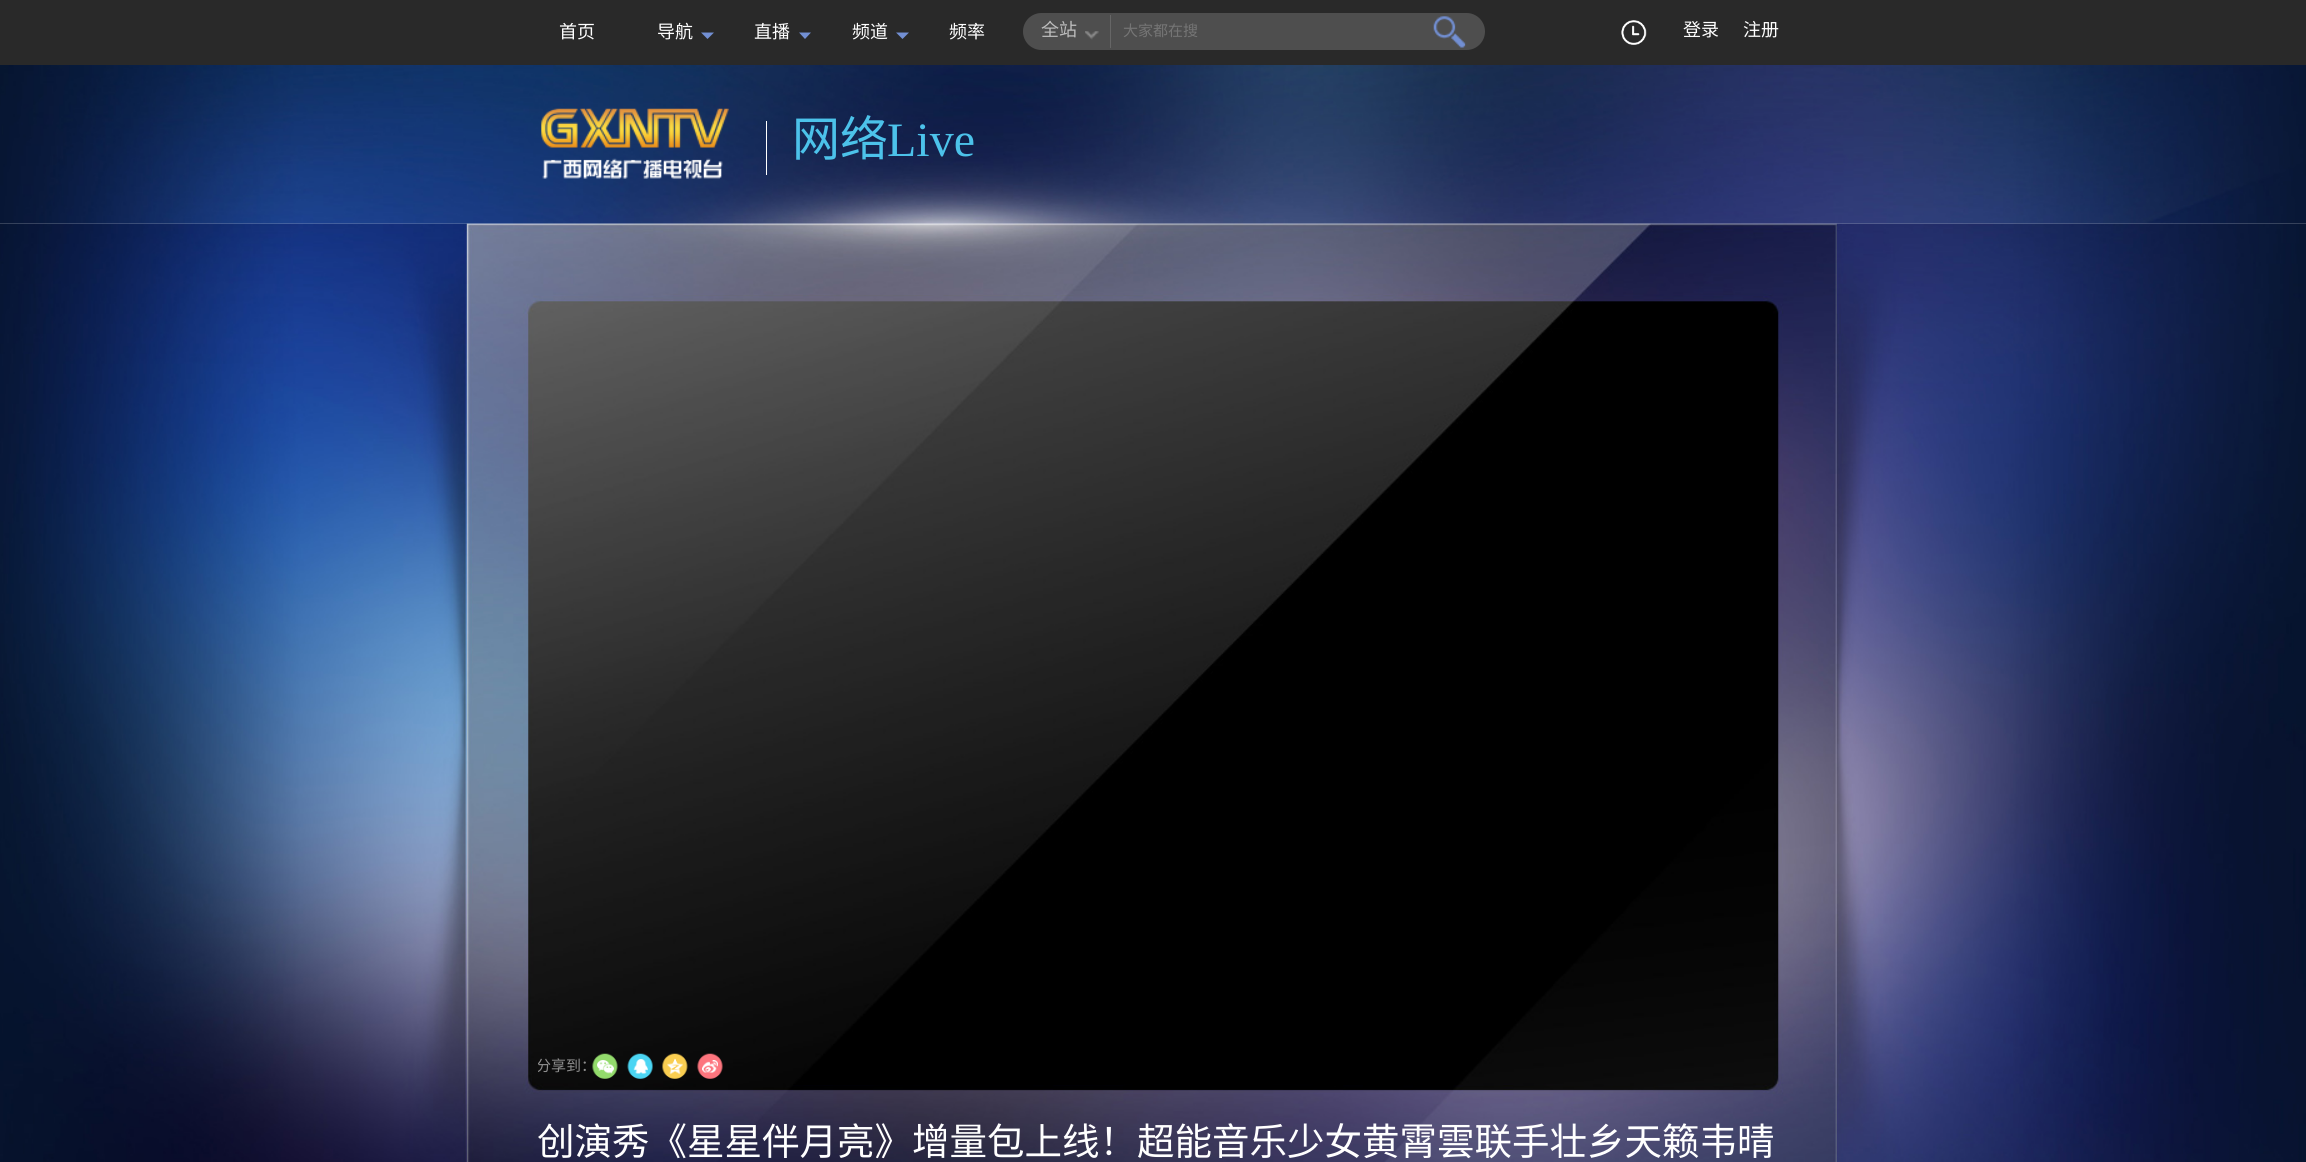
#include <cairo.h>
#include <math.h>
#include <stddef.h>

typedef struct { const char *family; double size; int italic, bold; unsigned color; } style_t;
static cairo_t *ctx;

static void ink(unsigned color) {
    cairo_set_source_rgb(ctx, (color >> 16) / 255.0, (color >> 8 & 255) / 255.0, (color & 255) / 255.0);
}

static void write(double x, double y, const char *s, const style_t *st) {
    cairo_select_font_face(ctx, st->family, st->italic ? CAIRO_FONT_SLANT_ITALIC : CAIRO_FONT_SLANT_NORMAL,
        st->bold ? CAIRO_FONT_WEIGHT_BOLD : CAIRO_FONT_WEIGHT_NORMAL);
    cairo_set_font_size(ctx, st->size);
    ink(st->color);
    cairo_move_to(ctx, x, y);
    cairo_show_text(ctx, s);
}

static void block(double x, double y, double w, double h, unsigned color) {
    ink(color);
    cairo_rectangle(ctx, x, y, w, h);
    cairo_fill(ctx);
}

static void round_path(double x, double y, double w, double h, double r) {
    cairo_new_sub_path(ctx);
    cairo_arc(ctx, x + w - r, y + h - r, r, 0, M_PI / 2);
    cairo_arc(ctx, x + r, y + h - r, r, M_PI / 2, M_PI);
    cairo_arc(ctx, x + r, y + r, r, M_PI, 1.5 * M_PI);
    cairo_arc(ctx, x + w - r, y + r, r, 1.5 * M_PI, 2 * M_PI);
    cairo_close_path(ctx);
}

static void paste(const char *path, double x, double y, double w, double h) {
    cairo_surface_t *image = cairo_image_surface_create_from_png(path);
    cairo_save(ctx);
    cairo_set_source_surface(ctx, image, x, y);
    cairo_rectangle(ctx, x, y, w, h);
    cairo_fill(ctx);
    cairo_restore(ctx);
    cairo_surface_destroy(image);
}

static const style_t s1 = {"Noto Sans CJK SC", 18, 0, 0, 0xffffff};
static const style_t s2 = {"Noto Sans CJK SC", 18, 0, 0, 0xbdbdbd};
static const style_t s3 = {"Noto Sans CJK SC", 15, 0, 0, 0x757575};
static const style_t s4 = {"Noto Sans CJK SC", 48, 0, 0, 0x4cc2ea};
static const style_t s5 = {"Liberation Serif", 48, 0, 0, 0x4cc2ea};
static const style_t s6 = {"Noto Sans CJK SC", 15, 0, 0, 0x8e8e8e};
static const style_t s7 = {"Noto Sans CJK SC", 37.5, 0, 0, 0xffffff};

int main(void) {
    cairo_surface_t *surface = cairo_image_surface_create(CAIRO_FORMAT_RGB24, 2306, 1162);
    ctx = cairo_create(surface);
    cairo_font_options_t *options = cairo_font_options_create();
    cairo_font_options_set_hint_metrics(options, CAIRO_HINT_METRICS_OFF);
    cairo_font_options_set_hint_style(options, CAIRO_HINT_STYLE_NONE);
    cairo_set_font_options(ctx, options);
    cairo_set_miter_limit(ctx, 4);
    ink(0xffffff);
    cairo_paint(ctx);
    block(0, 0, 2306, 65, 0x292929);
    write(559, 38, "首页", &s1);
    write(657, 38, "导航", &s1);
    ink(0x728fd3);
    cairo_new_path(ctx);
    cairo_move_to(ctx, 701, 32.5);
    cairo_line_to(ctx, 714, 32.5);
    cairo_line_to(ctx, 707.5, 39);
    cairo_close_path(ctx);
    cairo_fill(ctx);
    write(754, 38, "直播", &s1);
    ink(0x728fd3);
    cairo_new_path(ctx);
    cairo_move_to(ctx, 799, 32.5);
    cairo_line_to(ctx, 811, 32.5);
    cairo_line_to(ctx, 805, 39);
    cairo_close_path(ctx);
    cairo_fill(ctx);
    write(852, 38, "频道", &s1);
    ink(0x728fd3);
    cairo_new_path(ctx);
    cairo_move_to(ctx, 896, 32.5);
    cairo_line_to(ctx, 909, 32.5);
    cairo_line_to(ctx, 902.5, 39);
    cairo_close_path(ctx);
    cairo_fill(ctx);
    write(949, 38, "频率", &s1);
    ink(0x4e4e4e);
    round_path(1023, 13, 462, 37, 18.5);
    cairo_fill(ctx);
    block(1110, 15, 1, 33, 0x666666);
    paste("pic1.png", 1085, 31, 14, 9);
    write(1041, 36, "全站", &s2);
    write(1123, 36, "大家都在搜", &s3);
    paste("pic2.png", 1433, 16, 33, 32);
    paste("pic3.png", 1621, 20, 26, 25);
    write(1683, 36, "登录", &s1);
    write(1743, 36, "注册", &s1);
    paste("pic4.png", 0, 65, 2306, 159);
    paste("pic5.png", 541, 108, 188, 71);
    block(766, 121, 1, 54, 0xffffff);
    write(792, 156, "网络", &s4);
    write(887, 156, "Live", &s5);
    paste("pic6.png", 0, 223, 2306, 939);
    paste("pic7.png", 592, 1053, 26, 26);
    cairo_save(ctx);
    cairo_rectangle(ctx, 538, 1036, 1241, 50);
    cairo_clip(ctx);
    write(536, 1071, "分享到：", &s6);
    cairo_restore(ctx);
    paste("pic8.png", 627, 1053, 26, 26);
    paste("pic9.png", 662, 1053, 26, 26);
    paste("pic10.png", 697, 1053, 26, 26);
    write(537, 1155, "创演秀《星星伴月亮》增量包上线！超能音乐少女黄霄雲联手壮乡天籁韦晴", &s7);
    cairo_surface_write_to_png(surface, "screenshot.png");
    cairo_font_options_destroy(options);
    cairo_destroy(ctx);
    cairo_surface_destroy(surface);
    return 0;
}
